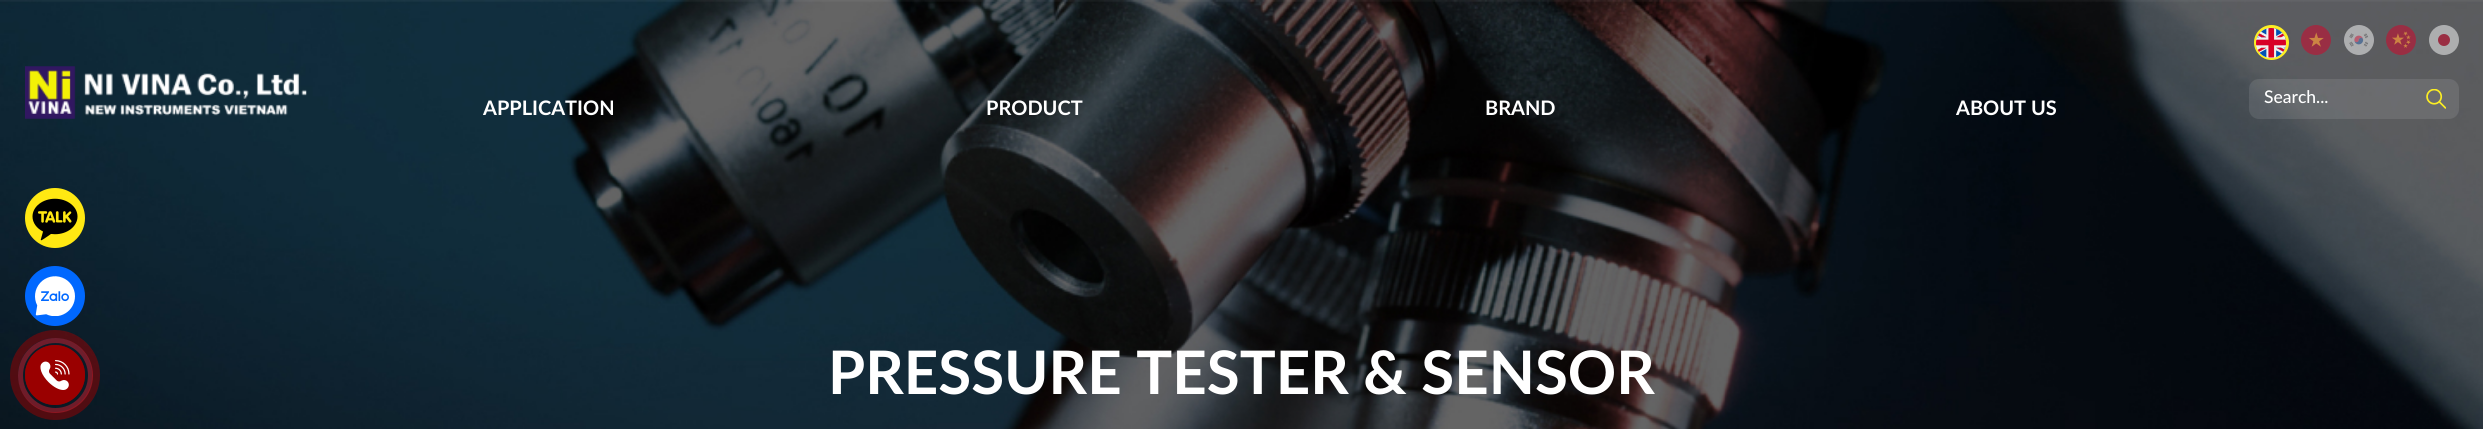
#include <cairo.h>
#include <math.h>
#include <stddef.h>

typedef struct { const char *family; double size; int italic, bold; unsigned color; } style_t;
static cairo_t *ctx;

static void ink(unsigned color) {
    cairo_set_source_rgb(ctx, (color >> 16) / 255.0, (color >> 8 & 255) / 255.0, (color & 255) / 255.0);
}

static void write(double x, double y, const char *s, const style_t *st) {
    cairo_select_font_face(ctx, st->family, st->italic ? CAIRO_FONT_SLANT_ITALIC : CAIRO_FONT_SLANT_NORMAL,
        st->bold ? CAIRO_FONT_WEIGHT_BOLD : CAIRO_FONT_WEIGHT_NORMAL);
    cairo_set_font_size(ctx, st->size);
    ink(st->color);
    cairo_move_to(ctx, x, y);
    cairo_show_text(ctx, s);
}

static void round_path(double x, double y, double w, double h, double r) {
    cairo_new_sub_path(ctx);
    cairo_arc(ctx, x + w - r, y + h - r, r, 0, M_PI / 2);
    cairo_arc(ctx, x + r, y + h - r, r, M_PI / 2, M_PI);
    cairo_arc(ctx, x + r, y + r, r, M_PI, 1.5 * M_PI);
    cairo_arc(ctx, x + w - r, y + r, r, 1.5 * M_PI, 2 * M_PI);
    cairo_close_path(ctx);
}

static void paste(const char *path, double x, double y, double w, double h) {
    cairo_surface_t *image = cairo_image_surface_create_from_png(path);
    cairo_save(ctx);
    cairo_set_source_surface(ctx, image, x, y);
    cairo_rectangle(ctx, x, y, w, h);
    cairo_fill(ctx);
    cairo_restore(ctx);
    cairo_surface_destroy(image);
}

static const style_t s1 = {"Lato Medium", 17.5, 0, 0, 0xffffff};
static const style_t s2 = {"Lato", 20, 0, 1, 0xffffff};
static const style_t s3 = {"Lato", 60, 0, 1, 0xffffff};

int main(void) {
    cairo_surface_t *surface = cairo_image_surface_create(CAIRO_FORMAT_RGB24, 2483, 429);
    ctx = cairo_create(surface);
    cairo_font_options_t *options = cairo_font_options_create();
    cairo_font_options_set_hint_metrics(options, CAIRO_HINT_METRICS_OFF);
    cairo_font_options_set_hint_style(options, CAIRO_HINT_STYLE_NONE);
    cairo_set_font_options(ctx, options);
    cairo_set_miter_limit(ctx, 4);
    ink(0xffffff);
    cairo_paint(ctx);
    paste("pic10.png", 0, 0, 2483, 429);
    paste("pic1.png", 25, 188, 60, 60);
    paste("pic2.png", 25, 266, 60, 60);
    ink(0x9a0000);
    cairo_arc(ctx, 55, 375, 30, 0, 2 * M_PI);
    cairo_fill(ctx);
    cairo_arc(ctx, 55, 375, 26, 0, 2 * M_PI);
    cairo_set_source_rgba(ctx, 0.604, 0, 0, 0.72);
    cairo_set_line_width(ctx, 8);
    cairo_stroke(ctx);
    paste("pic3.png", 40, 360, 30, 30);
    cairo_arc(ctx, 55, 375, 41, 0, 2 * M_PI);
    cairo_set_source_rgba(ctx, 0.604, 0, 0, 0.5);
    cairo_stroke(ctx);
    cairo_arc(ctx, 55.5, 375.5, 35, 0, 2 * M_PI);
    cairo_set_source_rgba(ctx, 0.745, 0.125, 0.184, 0.56);
    cairo_set_line_width(ctx, 5);
    cairo_stroke(ctx);
    paste("pic4.png", 25, 66, 282, 53);
    cairo_arc(ctx, 2271.5, 42.5, 16, 0, 2 * M_PI);
    ink(0xfcee23);
    cairo_set_line_width(ctx, 3);
    cairo_stroke(ctx);
    paste("pic5.png", 2256, 28, 30, 30);
    paste("pic6.png", 2301, 25, 30, 30);
    paste("pic7.png", 2344, 25, 30, 30);
    paste("pic8.png", 2386, 25, 30, 30);
    ink(0xadaeaf);
    cairo_arc(ctx, 2444, 40, 15, 0, 2 * M_PI);
    cairo_fill(ctx);
    ink(0x9a2e43);
    cairo_arc(ctx, 2444, 40, 6, 0, 2 * M_PI);
    cairo_fill(ctx);
    cairo_set_source_rgba(ctx, 1, 1, 1, 0.1);
    round_path(2249, 79, 210, 40, 10);
    cairo_fill(ctx);
    write(2264, 103, "Search...", &s1);
    paste("pic9.png", 2426, 89, 20, 20);
    write(483, 115, "APPLICATION", &s2);
    write(986, 115, "PRODUCT", &s2);
    write(1485, 115, "BRAND", &s2);
    write(1956, 115, "ABOUT US", &s2);
    write(828, 394, "PRESSURE TESTER & SENSOR", &s3);
    cairo_surface_write_to_png(surface, "screenshot.png");
    cairo_font_options_destroy(options);
    cairo_destroy(ctx);
    cairo_surface_destroy(surface);
    return 0;
}
